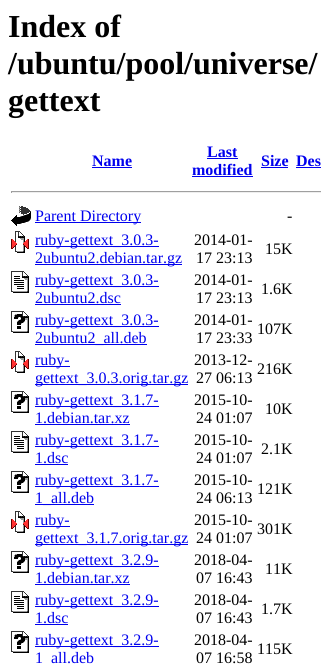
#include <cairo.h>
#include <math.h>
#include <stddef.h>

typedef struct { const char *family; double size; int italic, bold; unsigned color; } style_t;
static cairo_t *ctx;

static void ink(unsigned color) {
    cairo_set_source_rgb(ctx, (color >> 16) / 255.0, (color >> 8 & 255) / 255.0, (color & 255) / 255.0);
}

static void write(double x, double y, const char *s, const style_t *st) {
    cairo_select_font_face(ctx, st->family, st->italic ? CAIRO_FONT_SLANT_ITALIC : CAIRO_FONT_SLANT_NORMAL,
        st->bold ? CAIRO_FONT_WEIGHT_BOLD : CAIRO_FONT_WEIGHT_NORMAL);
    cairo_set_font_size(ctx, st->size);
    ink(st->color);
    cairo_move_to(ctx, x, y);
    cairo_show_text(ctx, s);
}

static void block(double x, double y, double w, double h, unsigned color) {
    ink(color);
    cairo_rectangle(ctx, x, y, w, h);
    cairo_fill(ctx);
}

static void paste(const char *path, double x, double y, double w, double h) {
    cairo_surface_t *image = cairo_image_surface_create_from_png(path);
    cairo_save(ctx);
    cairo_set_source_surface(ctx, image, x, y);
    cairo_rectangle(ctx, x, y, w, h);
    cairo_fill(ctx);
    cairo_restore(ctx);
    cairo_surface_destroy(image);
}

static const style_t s1 = {"Liberation Serif", 32, 0, 1, 0x000000};
static const style_t s2 = {"Liberation Serif", 16, 0, 1, 0x0000ee};
static const style_t s3 = {"Liberation Serif", 16, 0, 0, 0x0000ee};
static const style_t s4 = {"Liberation Serif", 16, 0, 0, 0x000000};

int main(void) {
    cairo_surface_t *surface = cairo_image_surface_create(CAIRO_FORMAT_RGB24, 321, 664);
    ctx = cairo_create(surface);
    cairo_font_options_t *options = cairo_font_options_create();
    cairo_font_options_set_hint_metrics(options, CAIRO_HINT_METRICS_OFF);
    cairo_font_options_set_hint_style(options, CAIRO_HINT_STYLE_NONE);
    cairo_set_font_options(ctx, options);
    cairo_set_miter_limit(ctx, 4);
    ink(0xffffff);
    cairo_paint(ctx);
    write(8, 37, "Index of", &s1);
    write(8, 74, "/ubuntu/pool/universe/", &s1);
    write(8, 111, "gettext", &s1);
    write(92, 166, "Name", &s2);
    block(92, 167, 40, 1, 0x0000ee);
    write(207, 157, "Last", &s2);
    block(207, 158, 31, 1, 0x0000ee);
    write(192, 175, "modified", &s2);
    block(192, 176, 61, 1, 0x0000ee);
    write(261, 166, "Size", &s2);
    block(261, 167, 27, 1, 0x0000ee);
    write(296, 166, "Des", &s2);
    block(296, 167, 25, 1, 0x0000ee);
    block(11, 191, 310, 1, 0x9f9f9f);
    block(11, 192, 310, 1, 0xeeeeee);
    block(11, 191, 1, 2, 0x9f9f9f);
    paste("pic1.png", 11, 206, 20, 20);
    block(35, 222, 106, 1, 0x0000ee);
    write(35, 221, "Parent Directory", &s3);
    write(287, 221, "-", &s4);
    paste("pic2.png", 11, 231, 18, 22);
    block(35, 246, 124, 1, 0x0000ee);
    write(35, 245, "ruby-gettext_3.0.3-", &s3);
    block(35, 264, 147, 1, 0x0000ee);
    write(35, 263, "2ubuntu2.debian.tar.gz", &s3);
    write(194, 245, "2014-01-", &s4);
    write(196, 263, "17 23:13", &s4);
    write(265, 254, "15K", &s4);
    paste("pic3.png", 11, 271, 18, 22);
    block(35, 286, 124, 1, 0x0000ee);
    write(35, 285, "ruby-gettext_3.0.3-", &s3);
    write(35, 303, "2ubuntu2.dsc", &s3);
    block(35, 304, 86, 1, 0x0000ee);
    write(194, 285, "2014-01-", &s4);
    write(196, 303, "17 23:13", &s4);
    write(261, 294, "1.6K", &s4);
    paste("pic4.png", 11, 311, 18, 22);
    block(35, 326, 124, 1, 0x0000ee);
    write(35, 325, "ruby-gettext_3.0.3-", &s3);
    block(35, 344, 112, 1, 0x0000ee);
    write(35, 343, "2ubuntu2_all.deb", &s3);
    write(194, 325, "2014-01-", &s4);
    write(196, 343, "17 23:33", &s4);
    write(257, 334, "107K", &s4);
    paste("pic2.png", 11, 351, 18, 22);
    block(35, 366, 35, 1, 0x0000ee);
    write(35, 365, "ruby-", &s3);
    block(35, 384, 153, 1, 0x0000ee);
    write(35, 383, "gettext_3.0.3.orig.tar.gz", &s3);
    write(194, 365, "2013-12-", &s4);
    write(196, 383, "27 06:13", &s4);
    write(257, 374, "216K", &s4);
    paste("pic4.png", 11, 391, 18, 22);
    block(35, 406, 124, 1, 0x0000ee);
    write(35, 405, "ruby-gettext_3.1.7-", &s3);
    write(35, 423, "1.debian.tar.xz", &s3);
    block(35, 424, 95, 1, 0x0000ee);
    write(194, 405, "2015-10-", &s4);
    write(196, 423, "24 01:07", &s4);
    write(265, 414, "10K", &s4);
    paste("pic3.png", 11, 431, 18, 22);
    block(35, 446, 124, 1, 0x0000ee);
    write(35, 445, "ruby-gettext_3.1.7-", &s3);
    write(35, 463, "1.dsc", &s3);
    block(35, 464, 33, 1, 0x0000ee);
    write(194, 445, "2015-10-", &s4);
    write(196, 463, "24 01:07", &s4);
    write(261, 454, "2.1K", &s4);
    paste("pic4.png", 11, 471, 18, 22);
    block(35, 486, 124, 1, 0x0000ee);
    write(35, 485, "ruby-gettext_3.1.7-", &s3);
    block(35, 504, 59, 1, 0x0000ee);
    write(35, 503, "1_all.deb", &s3);
    write(194, 485, "2015-10-", &s4);
    write(196, 503, "24 06:13", &s4);
    write(257, 494, "121K", &s4);
    paste("pic2.png", 11, 511, 18, 22);
    block(35, 526, 35, 1, 0x0000ee);
    write(35, 525, "ruby-", &s3);
    block(35, 544, 153, 1, 0x0000ee);
    write(35, 543, "gettext_3.1.7.orig.tar.gz", &s3);
    write(194, 525, "2015-10-", &s4);
    write(196, 543, "24 01:07", &s4);
    write(257, 534, "301K", &s4);
    paste("pic4.png", 11, 551, 18, 22);
    block(35, 566, 124, 1, 0x0000ee);
    write(35, 565, "ruby-gettext_3.2.9-", &s3);
    write(35, 583, "1.debian.tar.xz", &s3);
    block(35, 584, 95, 1, 0x0000ee);
    write(194, 565, "2018-04-", &s4);
    write(196, 583, "07 16:43", &s4);
    write(265, 574, "11K", &s4);
    paste("pic3.png", 11, 591, 18, 22);
    block(35, 606, 124, 1, 0x0000ee);
    write(35, 605, "ruby-gettext_3.2.9-", &s3);
    write(35, 623, "1.dsc", &s3);
    block(35, 624, 33, 1, 0x0000ee);
    write(194, 605, "2018-04-", &s4);
    write(196, 623, "07 16:43", &s4);
    write(261, 614, "1.7K", &s4);
    paste("pic4.png", 11, 631, 18, 22);
    block(35, 646, 124, 1, 0x0000ee);
    write(35, 645, "ruby-gettext_3.2.9-", &s3);
    write(35, 663, "1_all.deb", &s3);
    write(194, 645, "2018-04-", &s4);
    write(196, 663, "07 16:58", &s4);
    write(257, 654, "115K", &s4);
    cairo_surface_write_to_png(surface, "screenshot.png");
    cairo_font_options_destroy(options);
    cairo_destroy(ctx);
    cairo_surface_destroy(surface);
    return 0;
}
